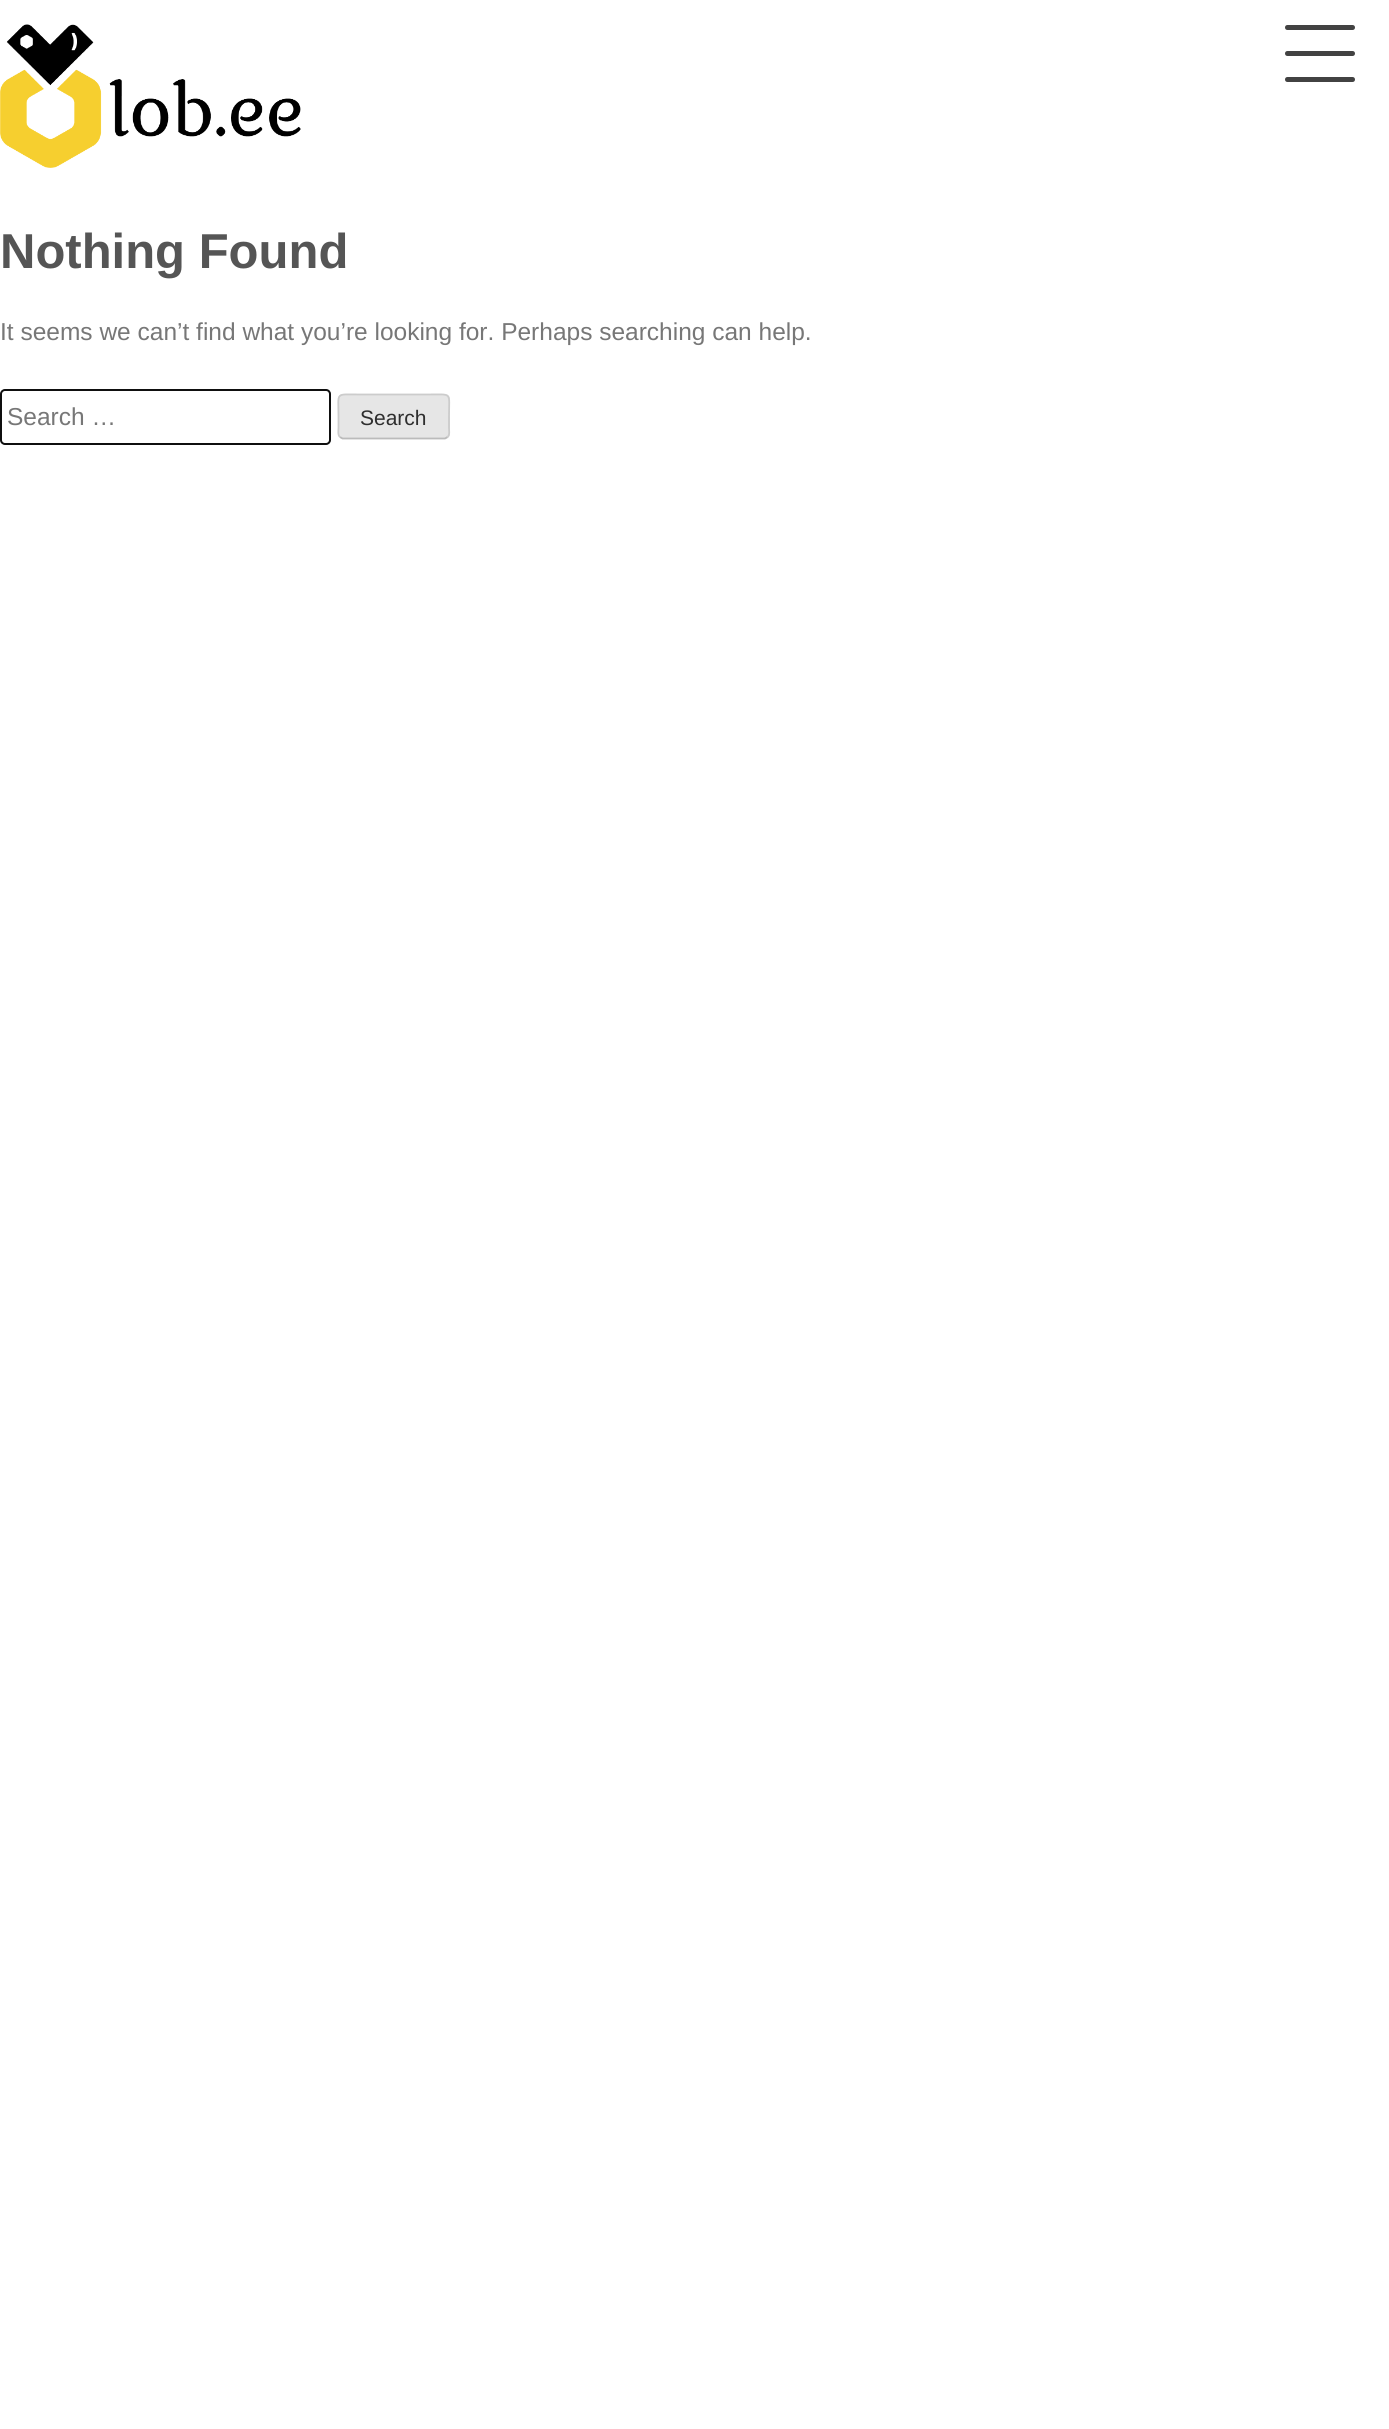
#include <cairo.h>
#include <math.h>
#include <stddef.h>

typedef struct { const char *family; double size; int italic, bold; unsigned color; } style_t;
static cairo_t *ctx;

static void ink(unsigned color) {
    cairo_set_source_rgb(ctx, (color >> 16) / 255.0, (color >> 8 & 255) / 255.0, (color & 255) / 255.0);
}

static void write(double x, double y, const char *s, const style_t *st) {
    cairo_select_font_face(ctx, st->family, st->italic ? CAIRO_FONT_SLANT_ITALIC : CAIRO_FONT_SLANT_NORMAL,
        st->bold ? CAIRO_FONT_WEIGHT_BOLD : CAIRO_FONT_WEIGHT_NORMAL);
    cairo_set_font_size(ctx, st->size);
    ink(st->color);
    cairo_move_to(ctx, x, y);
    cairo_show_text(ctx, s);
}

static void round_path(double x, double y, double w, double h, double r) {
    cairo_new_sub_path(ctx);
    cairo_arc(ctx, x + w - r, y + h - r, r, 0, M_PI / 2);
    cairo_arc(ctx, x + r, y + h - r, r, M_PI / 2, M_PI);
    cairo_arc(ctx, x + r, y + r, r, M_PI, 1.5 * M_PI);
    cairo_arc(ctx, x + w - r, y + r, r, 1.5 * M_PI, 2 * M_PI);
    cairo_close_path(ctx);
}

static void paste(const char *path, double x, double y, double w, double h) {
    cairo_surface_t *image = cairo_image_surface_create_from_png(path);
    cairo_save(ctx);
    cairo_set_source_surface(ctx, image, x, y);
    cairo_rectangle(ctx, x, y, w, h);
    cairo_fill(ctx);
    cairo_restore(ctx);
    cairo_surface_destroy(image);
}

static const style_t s1 = {"Liberation Sans", 49, 0, 1, 0x555555};
static const style_t s2 = {"Liberation Sans", 24.5, 0, 0, 0x777777};
static const style_t s3 = {"Liberation Sans", 21, 0, 0, 0x2e2e2e};

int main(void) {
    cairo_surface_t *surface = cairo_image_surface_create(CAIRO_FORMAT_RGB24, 1389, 2429);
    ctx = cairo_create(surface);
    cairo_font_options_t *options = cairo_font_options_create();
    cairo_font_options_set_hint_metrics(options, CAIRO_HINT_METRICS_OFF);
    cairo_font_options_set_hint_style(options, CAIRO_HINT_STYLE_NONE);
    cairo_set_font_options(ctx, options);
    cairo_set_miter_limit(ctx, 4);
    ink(0xffffff);
    cairo_paint(ctx);
    paste("pic1.png", 0, 24, 301, 144);
    ink(0x424242);
    cairo_new_path(ctx);
    cairo_move_to(ctx, 1287.5, 25);
    cairo_line_to(ctx, 1320, 25);
    cairo_line_to(ctx, 1320, 30);
    cairo_line_to(ctx, 1287.5, 30);
    cairo_curve_to(ctx, 1286, 30, 1285, 29, 1285, 27.5);
    cairo_curve_to(ctx, 1285, 26, 1286, 25, 1287.5, 25);
    cairo_close_path(ctx);
    cairo_fill(ctx);
    cairo_new_path(ctx);
    cairo_move_to(ctx, 1320, 25);
    cairo_line_to(ctx, 1352.5, 25);
    cairo_curve_to(ctx, 1354, 25, 1355, 26, 1355, 27.5);
    cairo_curve_to(ctx, 1355, 29, 1354, 30, 1352.5, 30);
    cairo_line_to(ctx, 1320, 30);
    cairo_close_path(ctx);
    cairo_fill(ctx);
    cairo_new_path(ctx);
    cairo_move_to(ctx, 1287.5, 51);
    cairo_line_to(ctx, 1320, 51);
    cairo_line_to(ctx, 1320, 56);
    cairo_line_to(ctx, 1287.5, 56);
    cairo_curve_to(ctx, 1286, 56, 1285, 55, 1285, 53.5);
    cairo_curve_to(ctx, 1285, 52, 1286, 51, 1287.5, 51);
    cairo_close_path(ctx);
    cairo_fill(ctx);
    cairo_new_path(ctx);
    cairo_move_to(ctx, 1320, 51);
    cairo_line_to(ctx, 1352.5, 51);
    cairo_curve_to(ctx, 1354, 51, 1355, 52, 1355, 53.5);
    cairo_curve_to(ctx, 1355, 55, 1354, 56, 1352.5, 56);
    cairo_line_to(ctx, 1320, 56);
    cairo_close_path(ctx);
    cairo_fill(ctx);
    cairo_new_path(ctx);
    cairo_move_to(ctx, 1287.5, 77);
    cairo_line_to(ctx, 1320, 77);
    cairo_line_to(ctx, 1320, 82);
    cairo_line_to(ctx, 1287.5, 82);
    cairo_curve_to(ctx, 1286, 82, 1285, 81, 1285, 79.5);
    cairo_curve_to(ctx, 1285, 78, 1286, 77, 1287.5, 77);
    cairo_close_path(ctx);
    cairo_fill(ctx);
    cairo_new_path(ctx);
    cairo_move_to(ctx, 1320, 77);
    cairo_line_to(ctx, 1352.5, 77);
    cairo_curve_to(ctx, 1354, 77, 1355, 78, 1355, 79.5);
    cairo_curve_to(ctx, 1355, 81, 1354, 82, 1352.5, 82);
    cairo_line_to(ctx, 1320, 82);
    cairo_close_path(ctx);
    cairo_fill(ctx);
    write(0, 268, "Nothing Found", &s1);
    write(0, 340, "It seems we can’t find what you’re looking for. Perhaps searching can help.", &s2);
    round_path(1, 390, 329, 54, 4);
    ink(0x0f0f0f);
    cairo_stroke(ctx);
    write(7, 425, "Search …", &s2);
    ink(0xe6e6e6);
    round_path(338, 394, 112, 45, 5);
    cairo_fill(ctx);
    cairo_new_path(ctx);
    cairo_move_to(ctx, 447.5, 437);
    cairo_line_to(ctx, 445, 438.5);
    cairo_line_to(ctx, 342.5, 438.5);
    cairo_line_to(ctx, 340, 437);
    ink(0xbbbbbb);
    cairo_set_line_width(ctx, 1.8);
    cairo_stroke(ctx);
    cairo_new_path(ctx);
    cairo_move_to(ctx, 340, 437);
    cairo_curve_to(ctx, 337.5, 435, 338.5, 430.5, 338.5, 428);
    cairo_line_to(ctx, 338.5, 416.5);
    cairo_curve_to(ctx, 338.5, 391.5, 334.5, 394.5, 360, 394.5);
    cairo_line_to(ctx, 427.5, 394.5);
    cairo_curve_to(ctx, 453, 394.5, 449, 391.5, 449, 416.5);
    cairo_line_to(ctx, 449, 428);
    cairo_curve_to(ctx, 449, 430.5, 450, 435, 447.5, 437);
    ink(0xcccccc);
    cairo_stroke(ctx);
    write(360, 425, "Search", &s3);
    cairo_surface_write_to_png(surface, "screenshot.png");
    cairo_font_options_destroy(options);
    cairo_destroy(ctx);
    cairo_surface_destroy(surface);
    return 0;
}
